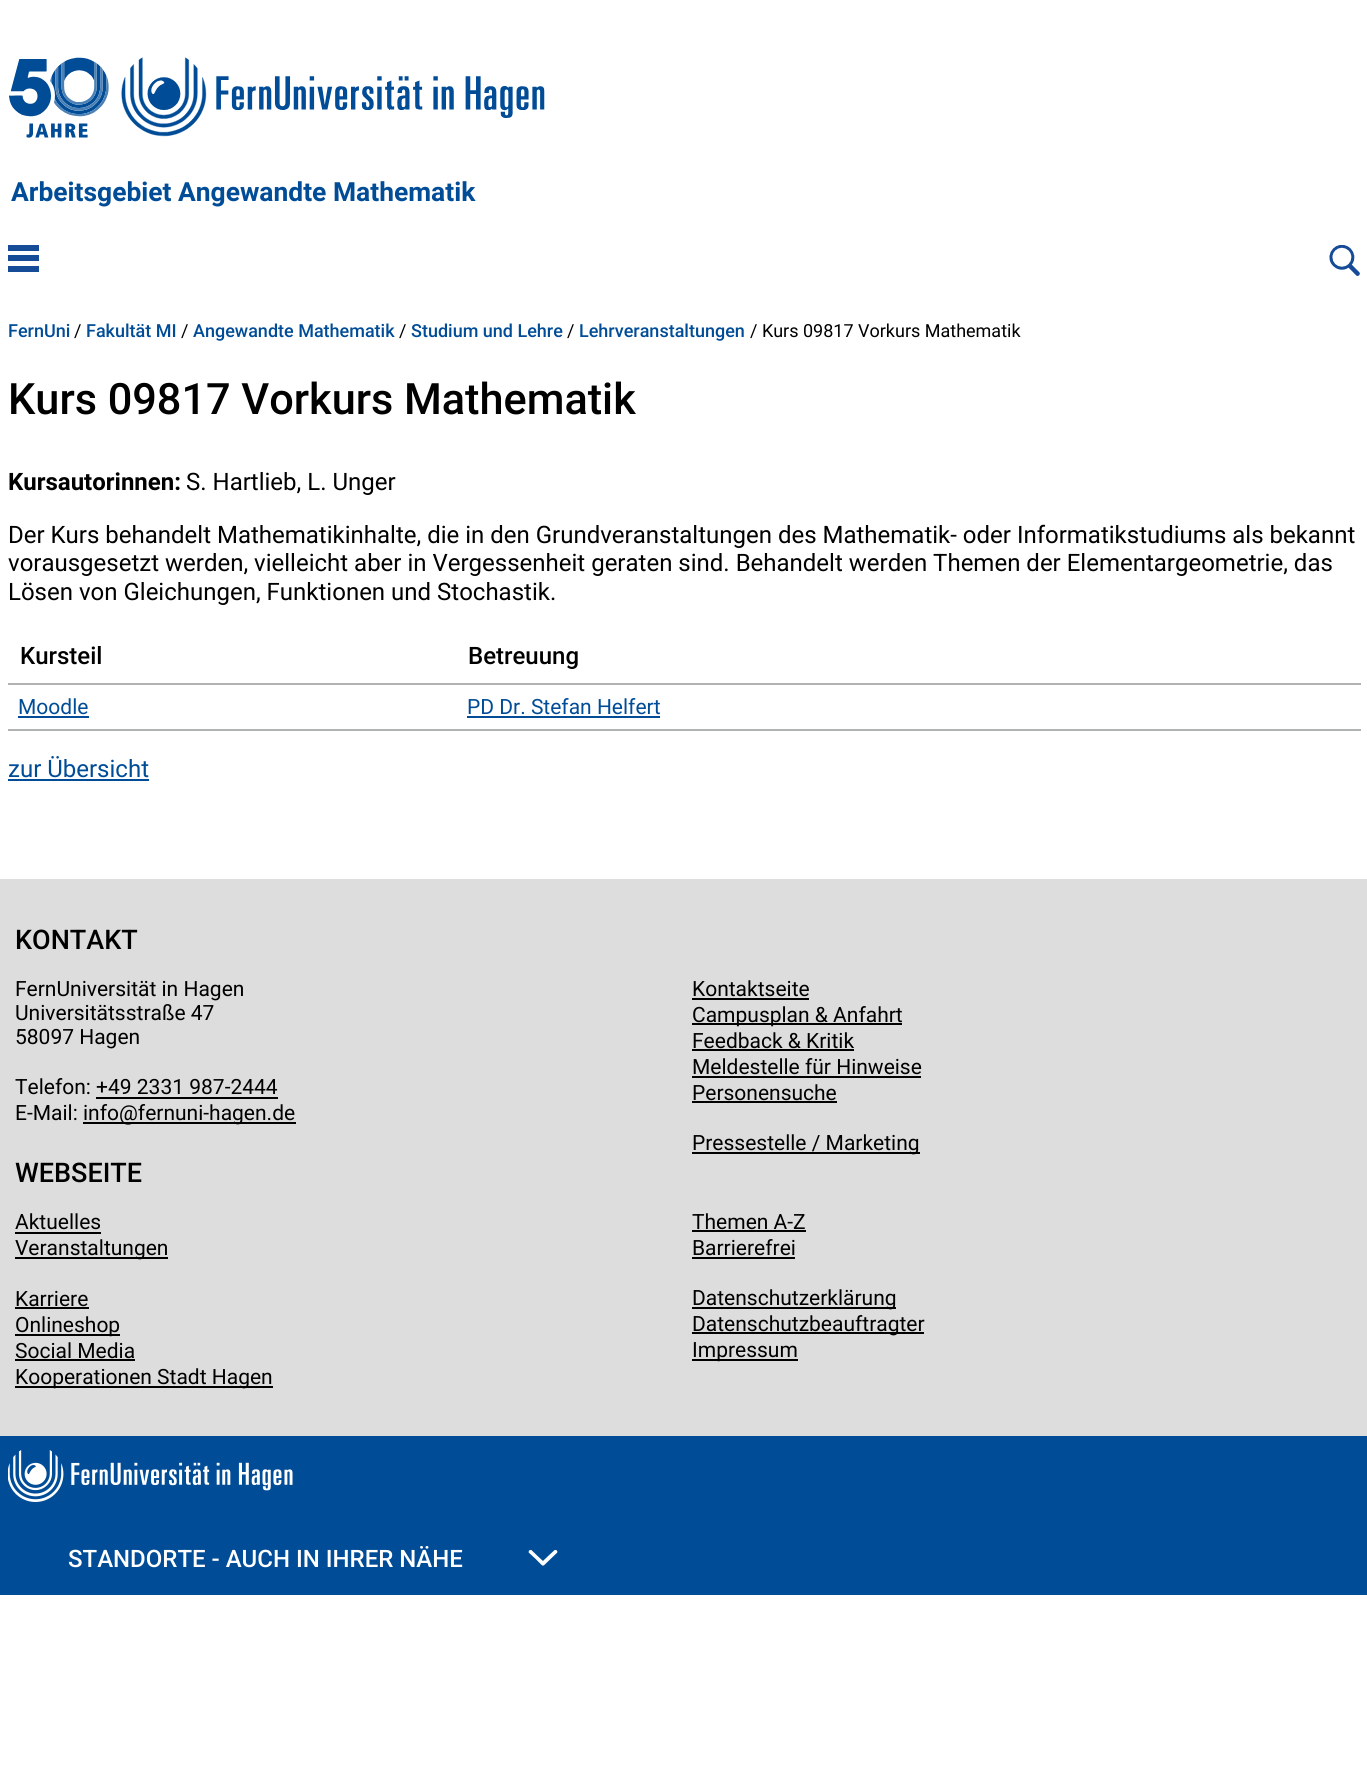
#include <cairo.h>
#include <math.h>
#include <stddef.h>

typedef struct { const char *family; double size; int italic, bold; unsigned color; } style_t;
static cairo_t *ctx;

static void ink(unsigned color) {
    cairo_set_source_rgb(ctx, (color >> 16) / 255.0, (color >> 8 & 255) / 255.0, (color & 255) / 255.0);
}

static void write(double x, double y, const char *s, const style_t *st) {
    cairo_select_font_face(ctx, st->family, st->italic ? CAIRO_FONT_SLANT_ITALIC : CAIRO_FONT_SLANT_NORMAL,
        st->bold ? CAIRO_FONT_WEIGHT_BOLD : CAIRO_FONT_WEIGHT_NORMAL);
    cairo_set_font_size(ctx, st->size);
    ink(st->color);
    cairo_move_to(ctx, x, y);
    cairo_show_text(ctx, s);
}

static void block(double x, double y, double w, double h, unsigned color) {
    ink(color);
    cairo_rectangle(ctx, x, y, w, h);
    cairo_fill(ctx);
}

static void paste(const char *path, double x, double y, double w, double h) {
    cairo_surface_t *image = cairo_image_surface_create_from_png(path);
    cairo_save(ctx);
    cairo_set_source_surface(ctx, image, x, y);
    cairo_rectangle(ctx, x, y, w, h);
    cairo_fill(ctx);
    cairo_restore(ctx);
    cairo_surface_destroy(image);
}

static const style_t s1 = {"Roboto", 26.4, 0, 1, 0x004c97};
static const style_t s2 = {"Roboto Medium", 18, 0, 0, 0x004c97};
static const style_t s3 = {"Roboto", 18, 0, 0, 0x000000};
static const style_t s4 = {"Roboto Medium", 43.25, 0, 0, 0x000000};
static const style_t s5 = {"Roboto", 24, 0, 1, 0x000000};
static const style_t s6 = {"Roboto", 24, 0, 0, 0x000000};
static const style_t s7 = {"Roboto Medium", 24, 0, 0, 0x000000};
static const style_t s8 = {"Roboto", 21, 0, 0, 0x004c97};
static const style_t s9 = {"Roboto", 24, 0, 0, 0x004c97};
static const style_t s10 = {"Roboto Medium", 27, 0, 0, 0x000000};
static const style_t s11 = {"Roboto", 21, 0, 0, 0x000000};
static const style_t s12 = {"Roboto Medium", 24, 0, 0, 0xffffff};

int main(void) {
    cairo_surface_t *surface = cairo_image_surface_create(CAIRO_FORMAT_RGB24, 1367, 1783);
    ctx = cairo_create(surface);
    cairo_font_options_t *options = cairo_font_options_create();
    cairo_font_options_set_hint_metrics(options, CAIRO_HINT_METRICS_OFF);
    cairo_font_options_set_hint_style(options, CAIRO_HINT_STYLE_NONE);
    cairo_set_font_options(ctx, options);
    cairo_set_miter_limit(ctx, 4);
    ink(0xffffff);
    cairo_paint(ctx);
    paste("pic1.png", 9, 57, 536, 81);
    write(11, 201, "Arbeitsgebiet Angewandte Mathematik", &s1);
    block(8, 245, 31, 6, 0x164c97);
    block(8, 255, 31, 6, 0x164c97);
    block(8, 266, 31, 6, 0x164c97);
    paste("pic2.png", 1329, 245, 31, 31);
    write(8, 337, "FernUni", &s2);
    write(74, 337, "/", &s3);
    write(86, 337, "Fakultät MI", &s2);
    write(181, 337, "/", &s3);
    write(193, 337, "Angewandte Mathematik", &s2);
    write(399, 337, "/", &s3);
    write(411, 337, "Studium und Lehre", &s2);
    write(567, 337, "/", &s3);
    write(579, 337, "Lehrveranstaltungen", &s2);
    write(750, 337, "/ Kurs 09817 Vorkurs Mathematik", &s3);
    write(8, 414, "Kurs 09817 Vorkurs Mathematik", &s4);
    write(8, 490, "Kursautorinnen:", &s5);
    write(186, 490, "S. Hartlieb, L. Unger", &s6);
    write(8, 543, "Der Kurs behandelt Mathematikinhalte, die in den Grundveranstaltungen des Mathematik- oder Informatikstudiums als bekannt", &s6);
    write(8, 571, "vorausgesetzt werden, vielleicht aber in Vergessenheit geraten sind. Behandelt werden Themen der Elementargeometrie, das", &s6);
    write(8, 600, "Lösen von Gleichungen, Funktionen und Stochastik.", &s6);
    write(20, 664, "Kursteil", &s7);
    block(8, 683, 1353, 2, 0xb1b3b3);
    write(468, 664, "Betreuung", &s7);
    write(18, 714, "Moodle", &s8);
    block(18, 716, 71, 2, 0x004c97);
    block(8, 729, 1353, 2, 0xb1b3b3);
    write(467, 714, "PD Dr. Stefan Helfert", &s8);
    block(467, 716, 193, 2, 0x004c97);
    write(8, 777, "zur Übersicht", &s9);
    block(8, 779, 141, 2, 0x004c97);
    block(0, 879, 1367, 557, 0xdddddd);
    write(15, 949, "KONTAKT", &s10);
    write(15, 996, "FernUniversität in Hagen", &s11);
    write(15, 1020, "Universitätsstraße 47", &s11);
    write(15, 1044, "58097 Hagen", &s11);
    write(15, 1094, "Telefon: +49 2331 987-2444", &s11);
    block(96, 1097, 182, 2, 0x000000);
    write(15, 1120, "E-Mail: info", &s11);
    block(83, 1122, 213, 2, 0x000000);
    write(119, 1120, "@fernuni-hagen.de", &s11);
    write(692, 996, "Kontaktseite", &s11);
    block(692, 998, 117, 2, 0x000000);
    block(692, 1023, 210, 2, 0x000000);
    write(692, 1022, "Campusplan & Anfahrt", &s11);
    write(692, 1048, "Feedback & Kritik", &s11);
    block(692, 1049, 162, 2, 0x000000);
    write(692, 1074, "Meldestelle für Hinweise", &s11);
    block(692, 1076, 229, 2, 0x000000);
    write(692, 1100, "Personensuche", &s11);
    block(692, 1101, 145, 2, 0x000000);
    block(692, 1152, 228, 2, 0x000000);
    write(692, 1150, "Pressestelle / Marketing", &s11);
    write(15, 1182, "WEBSEITE", &s10);
    write(15, 1229, "Aktuelles", &s11);
    block(15, 1232, 86, 2, 0x000000);
    block(15, 1257, 153, 2, 0x000000);
    write(15, 1255, "Veranstaltungen", &s11);
    write(15, 1306, "Karriere", &s11);
    block(15, 1307, 74, 2, 0x000000);
    block(15, 1334, 105, 2, 0x000000);
    write(15, 1332, "Onlineshop", &s11);
    write(15, 1358, "Social Media", &s11);
    block(15, 1359, 120, 2, 0x000000);
    block(15, 1386, 258, 2, 0x000000);
    write(15, 1384, "Kooperationen Stadt Hagen", &s11);
    write(692, 1229, "Themen A-Z", &s11);
    block(692, 1230, 114, 2, 0x000000);
    write(692, 1255, "Barrierefrei", &s11);
    block(692, 1257, 103, 2, 0x000000);
    block(692, 1307, 204, 2, 0x000000);
    write(692, 1305, "Datenschutzerklärung", &s11);
    block(692, 1332, 232, 2, 0x000000);
    write(692, 1331, "Datenschutzbeauftragter", &s11);
    block(692, 1359, 106, 2, 0x000000);
    write(692, 1357, "Impressum", &s11);
    block(0, 1436, 1367, 159, 0x004c97);
    paste("pic3.png", 8, 1450, 285, 52);
    write(68, 1567, "STANDORTE - AUCH IN IHRER NÄHE", &s12);
    paste("pic4.png", 528, 1550, 30, 16);
    cairo_surface_write_to_png(surface, "screenshot.png");
    cairo_font_options_destroy(options);
    cairo_destroy(ctx);
    cairo_surface_destroy(surface);
    return 0;
}
